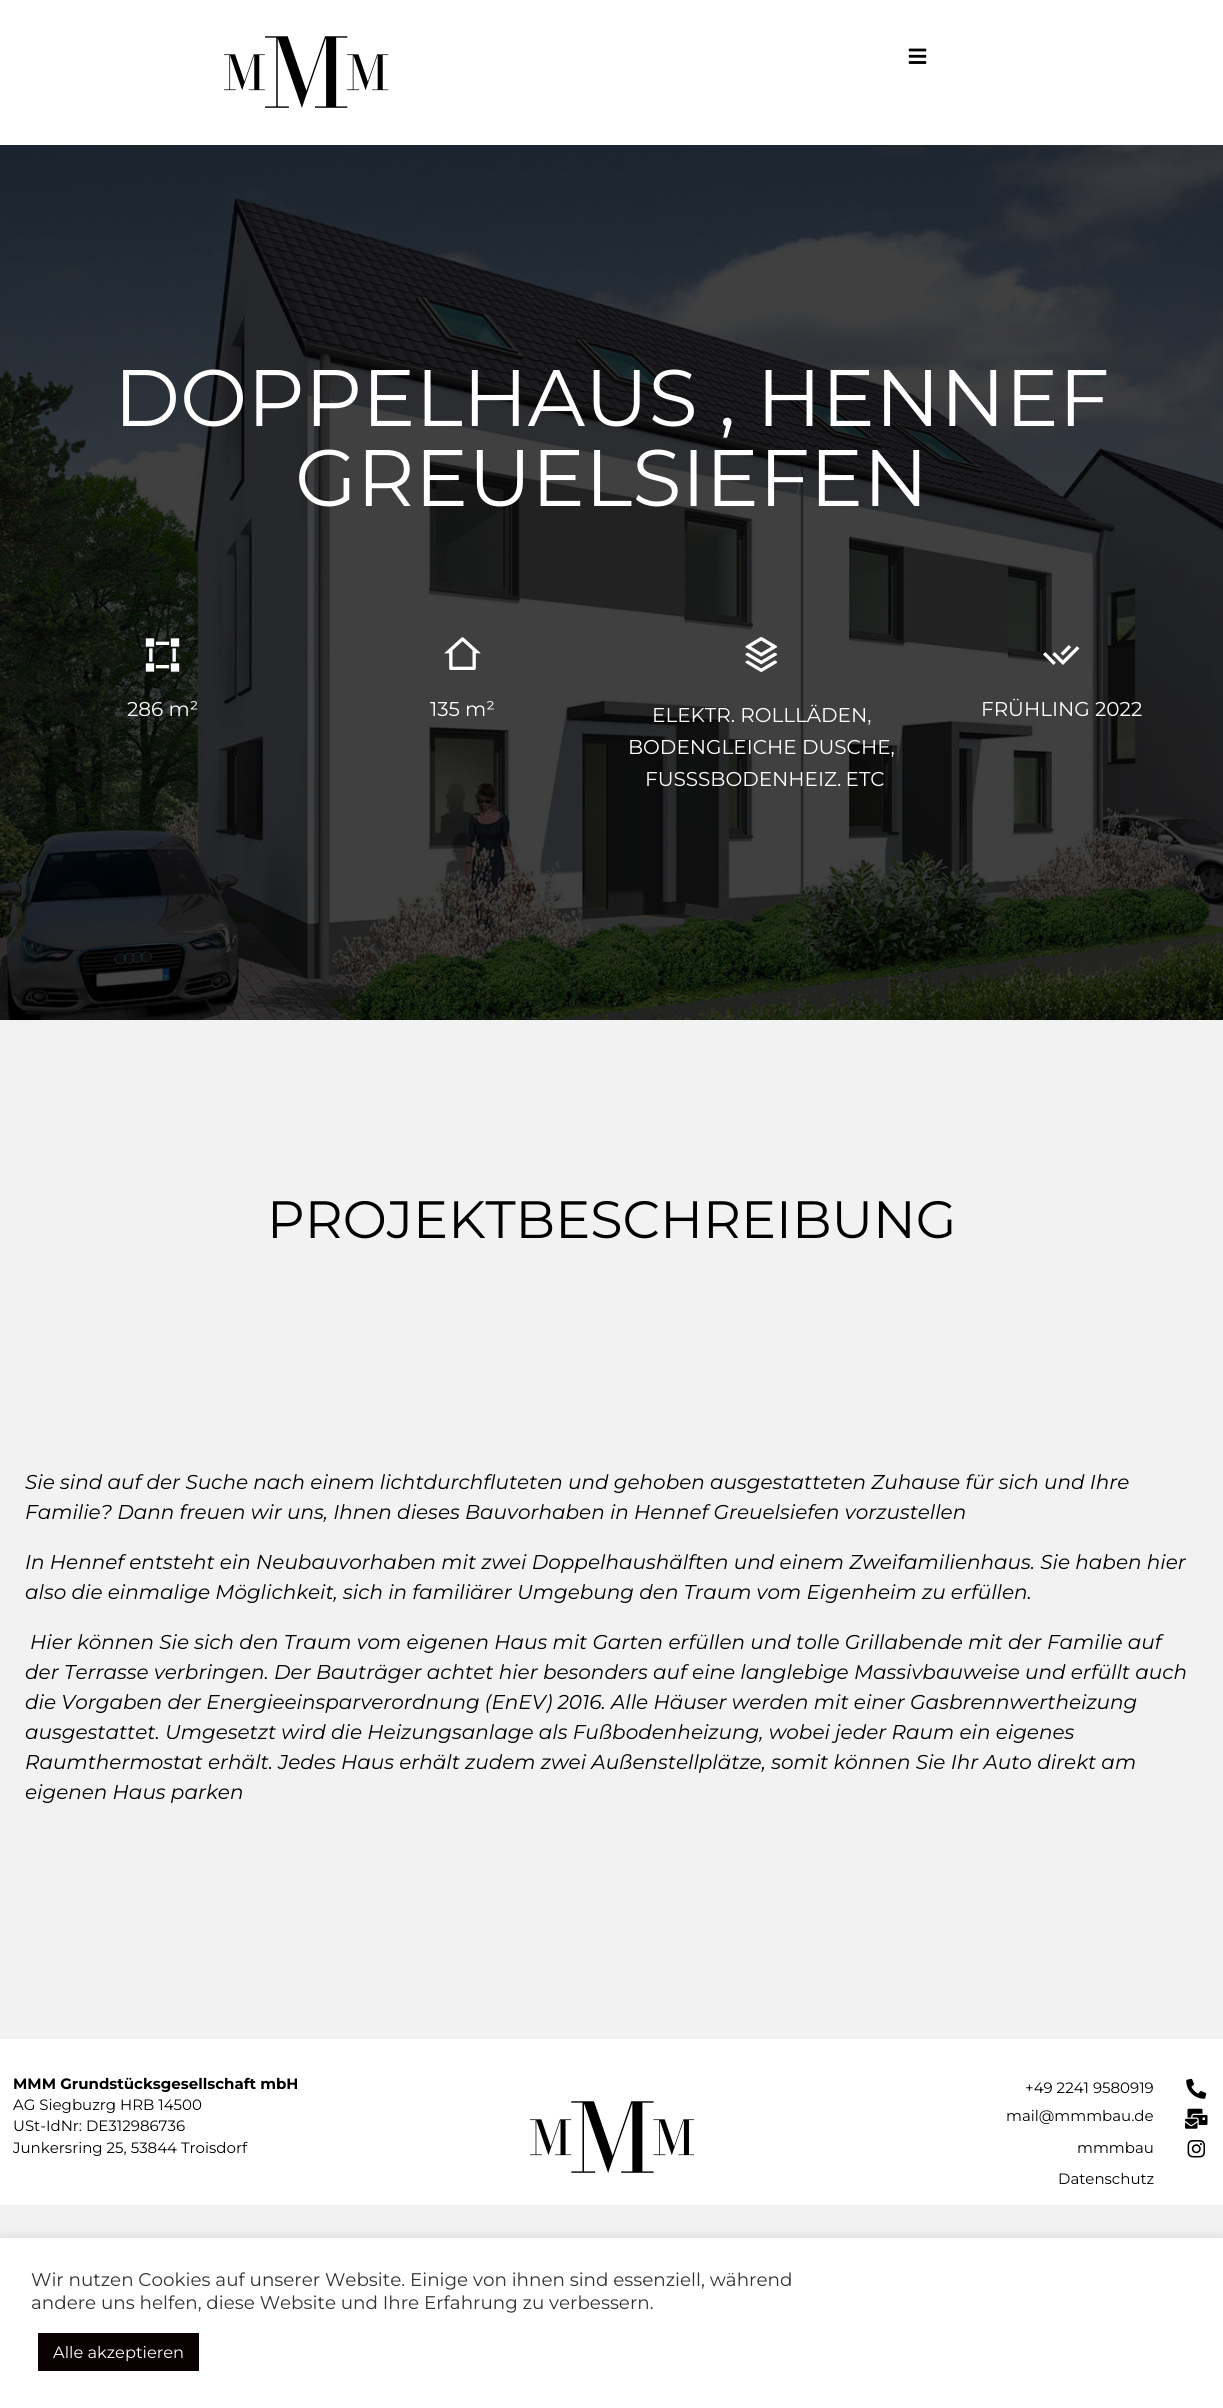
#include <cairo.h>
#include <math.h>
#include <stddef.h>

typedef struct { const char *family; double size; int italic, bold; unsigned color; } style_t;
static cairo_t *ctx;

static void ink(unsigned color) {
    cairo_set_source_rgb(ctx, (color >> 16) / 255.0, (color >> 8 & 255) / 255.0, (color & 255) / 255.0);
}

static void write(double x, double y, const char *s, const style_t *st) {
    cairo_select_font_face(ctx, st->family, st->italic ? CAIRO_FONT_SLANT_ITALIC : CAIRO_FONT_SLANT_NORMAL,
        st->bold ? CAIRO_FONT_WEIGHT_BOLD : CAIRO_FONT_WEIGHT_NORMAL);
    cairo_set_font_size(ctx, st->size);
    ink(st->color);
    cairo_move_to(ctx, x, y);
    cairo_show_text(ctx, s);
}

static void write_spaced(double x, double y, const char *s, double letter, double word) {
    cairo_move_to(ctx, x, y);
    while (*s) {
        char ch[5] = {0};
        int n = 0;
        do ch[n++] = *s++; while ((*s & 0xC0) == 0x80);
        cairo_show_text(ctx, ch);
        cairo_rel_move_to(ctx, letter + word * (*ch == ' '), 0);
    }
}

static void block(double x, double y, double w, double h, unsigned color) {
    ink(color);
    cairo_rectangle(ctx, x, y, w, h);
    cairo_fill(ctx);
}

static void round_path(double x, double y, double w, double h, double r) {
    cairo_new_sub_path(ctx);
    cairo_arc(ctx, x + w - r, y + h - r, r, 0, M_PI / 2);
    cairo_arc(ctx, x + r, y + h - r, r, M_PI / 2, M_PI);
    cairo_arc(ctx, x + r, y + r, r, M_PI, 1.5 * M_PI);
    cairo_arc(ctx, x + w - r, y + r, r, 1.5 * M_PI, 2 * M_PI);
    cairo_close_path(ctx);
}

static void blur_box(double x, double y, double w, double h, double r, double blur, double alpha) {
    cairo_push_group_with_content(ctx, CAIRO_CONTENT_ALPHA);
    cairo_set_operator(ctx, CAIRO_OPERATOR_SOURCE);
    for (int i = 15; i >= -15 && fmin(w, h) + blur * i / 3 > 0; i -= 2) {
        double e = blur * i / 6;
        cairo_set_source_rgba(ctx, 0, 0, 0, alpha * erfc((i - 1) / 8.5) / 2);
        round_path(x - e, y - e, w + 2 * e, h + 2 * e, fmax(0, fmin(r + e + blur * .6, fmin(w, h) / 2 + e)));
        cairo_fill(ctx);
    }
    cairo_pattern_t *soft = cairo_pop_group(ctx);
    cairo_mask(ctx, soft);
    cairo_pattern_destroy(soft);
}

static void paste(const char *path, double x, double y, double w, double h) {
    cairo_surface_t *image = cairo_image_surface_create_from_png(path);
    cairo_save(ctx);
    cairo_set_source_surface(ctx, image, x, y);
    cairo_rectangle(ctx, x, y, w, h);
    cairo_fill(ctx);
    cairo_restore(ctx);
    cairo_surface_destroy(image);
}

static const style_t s1 = {"Montserrat Thin", 80, 0, 0, 0xffffff};
static const style_t s2 = {"Montserrat Thin", 20, 0, 0, 0xffffff};
static const style_t s3 = {"Montserrat Thin", 52.5, 0, 0, 0x000000};
static const style_t s4 = {"Montserrat Thin", 20, 1, 0, 0x000000};
static const style_t s5 = {"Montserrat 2 Thin", 15, 0, 0, 0x000000};
static const style_t s6 = {"Montserrat Thin", 15, 0, 0, 0x000000};
static const style_t s7 = {"Montserrat Thin", 18.35, 0, 0, 0x333333};
static const style_t s8 = {"Montserrat Thin", 16.25, 0, 0, 0xffffff};

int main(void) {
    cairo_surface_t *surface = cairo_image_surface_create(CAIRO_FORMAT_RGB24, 1223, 2408);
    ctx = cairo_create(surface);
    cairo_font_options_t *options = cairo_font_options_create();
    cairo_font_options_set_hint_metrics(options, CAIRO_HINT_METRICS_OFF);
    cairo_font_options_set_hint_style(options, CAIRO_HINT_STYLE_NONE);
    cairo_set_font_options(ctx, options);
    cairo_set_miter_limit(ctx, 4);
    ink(0xf2f2f2);
    cairo_paint(ctx);
    block(0, 0, 1223, 145, 0xffffff);
    paste("pic1.png", 224, 36, 165, 72);
    paste("pic2.png", 908, 48, 19, 16);
    paste("pic3.png", 0, 145, 1223, 875);
    write(114, 426, "DOPPELHAUS , HENNEF", &s1);
    write(295, 506, "GREUELSIEFEN", &s1);
    paste("pic4.png", 145, 638, 35, 34);
    write(127, 716, "286 m²", &s2);
    paste("pic5.png", 444, 637, 37, 33);
    write(430, 716, "135 m²", &s2);
    paste("pic6.png", 745, 637, 33, 35);
    write(652, 722, "ELEKTR. ROLLLÄDEN,", &s2);
    write(628, 754, "BODENGLEICHE DUSCHE,", &s2);
    write(645, 786, "FUSS", &s2);
    write_spaced(698, 786, "SBODENHEIZ. ETC", 0, -1);
    paste("pic7.png", 1043, 645, 37, 20);
    write(981, 716, "FRÜHLING 2022", &s2);
    write(267, 1238, "PROJEKTBESCHREIBUNG", &s3);
    write(25, 1489, "Sie sind auf der Suche nach einem lichtdurchfluteten und gehoben ausgestatteten Zuhause für sich und Ihre", &s4);
    write(25, 1519, "Familie? Dann freuen wir uns, Ihnen dieses Bauvorhaben in Hennef Greuelsiefen vorzustellen", &s4);
    write(25, 1569, "In Hennef entsteht ein Neubauvorhaben mit zwei Doppelhaushälften und einem Zweifamilienhaus. Sie haben hier", &s4);
    write(25, 1599, "also die einmalige Möglichkeit, sich in familiärer Umgebung den Traum vom Eigenheim zu erfüllen.", &s4);
    write(30, 1649, "Hier können Sie sich den Traum vom eigenen Haus mit Garten erfüllen und tolle Grillabende mit der Familie auf", &s4);
    write(25, 1679, "der Terrasse verbringen. Der Bauträger achtet hier besonders auf eine langlebige Massivbauweise und erfüllt auch", &s4);
    write(25, 1709, "die Vorgaben der Energieeinsparverordnung (EnEV) 2016. Alle Häuser werden mit einer Gasbrennwertheizung", &s4);
    write(25, 1739, "ausgestattet. Umgesetzt wird die Heizungsanlage als Fußbodenheizung, wobei jeder Raum ein eigenes", &s4);
    write(25, 1769, "Raumthermostat erhält. Jedes Haus erhält zudem zwei Außenstellplätze, somit können Sie Ihr Auto direkt am", &s4);
    write(25, 1799, "eigenen Haus parken", &s4);
    block(0, 2039, 1223, 166, 0xffffff);
    write(13, 2089, "MMM Grundstücksgesellschaft mbH", &s5);
    write(13, 2110, "AG Siegbuzrg HRB 14500", &s6);
    write(13, 2131, "USt-IdNr: DE312986736", &s6);
    write(13, 2153, "Junkersring 25, 53844 Troisdorf", &s6);
    paste("pic8.png", 530, 2101, 164, 72);
    write(1025, 2093, "+49 2241 9580919", &s6);
    write(1006, 2121, "mail@mmmbau.de", &s6);
    write(1077, 2153, "mmmbau", &s6);
    write(1058, 2184, "Datenschutz", &s6);
    paste("pic9.png", 1186, 2078, 21, 21);
    paste("pic10.png", 1185, 2108, 23, 21);
    paste("pic11.png", 1187, 2140, 19, 18);
    ink(0xacabab);
    blur_box(0, 2236, 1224, 172, 0, 6, 0.3);
    block(0, 2238, 1223, 170, 0xffffff);
    write(31, 2286, "Wir nutzen Cookies auf unserer Website. Einige von ihnen sind essenziell, während", &s7);
    write(31, 2309, "andere uns helfen, diese Website und Ihre Erfahrung zu verbessern.", &s7);
    block(38, 2333, 161, 38, 0x0a0202);
    write(53, 2358, "Alle akzeptieren", &s8);
    cairo_surface_write_to_png(surface, "screenshot.png");
    cairo_font_options_destroy(options);
    cairo_destroy(ctx);
    cairo_surface_destroy(surface);
    return 0;
}
